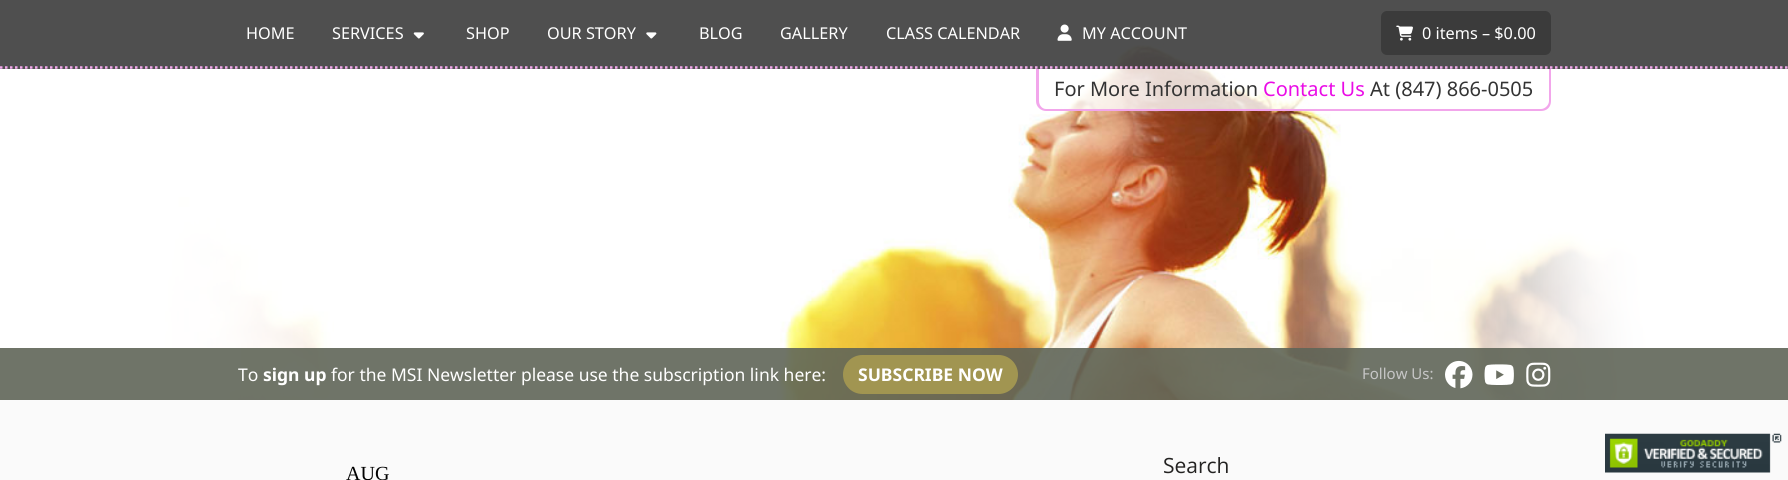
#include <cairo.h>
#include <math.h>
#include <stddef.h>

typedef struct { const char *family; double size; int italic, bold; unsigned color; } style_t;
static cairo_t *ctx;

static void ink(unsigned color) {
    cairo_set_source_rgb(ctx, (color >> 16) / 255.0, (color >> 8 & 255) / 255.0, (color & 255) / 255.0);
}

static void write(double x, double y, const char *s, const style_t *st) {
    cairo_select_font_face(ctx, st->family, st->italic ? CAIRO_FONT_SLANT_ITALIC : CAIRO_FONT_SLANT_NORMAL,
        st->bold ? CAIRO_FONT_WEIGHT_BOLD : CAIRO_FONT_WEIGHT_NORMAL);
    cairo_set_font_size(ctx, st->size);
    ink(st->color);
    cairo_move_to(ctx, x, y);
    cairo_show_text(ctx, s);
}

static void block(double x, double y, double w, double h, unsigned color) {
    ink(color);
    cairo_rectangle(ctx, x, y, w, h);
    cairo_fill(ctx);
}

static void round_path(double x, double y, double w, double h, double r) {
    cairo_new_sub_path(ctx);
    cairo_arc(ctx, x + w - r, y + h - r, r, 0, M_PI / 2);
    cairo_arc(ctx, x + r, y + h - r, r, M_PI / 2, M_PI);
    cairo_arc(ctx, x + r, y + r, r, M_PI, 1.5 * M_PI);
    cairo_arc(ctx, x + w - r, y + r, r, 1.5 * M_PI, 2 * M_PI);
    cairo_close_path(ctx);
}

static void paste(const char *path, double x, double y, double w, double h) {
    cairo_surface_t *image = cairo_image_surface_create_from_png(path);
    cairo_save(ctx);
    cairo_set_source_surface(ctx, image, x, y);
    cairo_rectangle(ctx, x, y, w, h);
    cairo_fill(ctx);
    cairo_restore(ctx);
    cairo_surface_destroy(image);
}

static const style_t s1 = {"Noto Sans", 16.25, 0, 0, 0xffffff};
static const style_t s2 = {"Noto Sans", 20, 0, 0, 0x333333};
static const style_t s3 = {"Noto Sans", 20, 0, 0, 0xea0be6};
static const style_t s4 = {"Noto Sans", 17.5, 0, 0, 0xffffff};
static const style_t s5 = {"Noto Sans", 17.5, 0, 1, 0xffffff};
static const style_t s6 = {"Noto Sans", 15, 0, 0, 0xc6c6c6};
static const style_t s7 = {"Liberation Serif", 20, 0, 0, 0x000000};
static const style_t s8 = {"Open Sans", 21, 0, 0, 0x232221};

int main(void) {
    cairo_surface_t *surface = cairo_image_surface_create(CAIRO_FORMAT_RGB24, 1788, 480);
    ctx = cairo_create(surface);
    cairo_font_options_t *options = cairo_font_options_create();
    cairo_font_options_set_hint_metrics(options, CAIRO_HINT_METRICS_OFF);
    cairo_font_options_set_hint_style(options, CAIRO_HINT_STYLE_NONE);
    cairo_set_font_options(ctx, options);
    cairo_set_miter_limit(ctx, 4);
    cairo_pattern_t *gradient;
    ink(0xfafafa);
    cairo_paint(ctx);
    block(0, 0, 1788, 400, 0xffffff);
    paste("pic5.png", 137, 41, 1522, 359);
    cairo_set_source_rgba(ctx, 0.278, 0.278, 0.278, 0.95);
    cairo_rectangle(ctx, 0, 0, 1788, 69);
    cairo_fill(ctx);
    cairo_new_path(ctx);
    cairo_move_to(ctx, 0, 67.5);
    cairo_line_to(ctx, 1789, 67.5);
    ink(0xf2a6eb);
    cairo_set_line_width(ctx, 2.5);
    cairo_set_dash(ctx, (double[]){2.5, 2.5}, 2, 0);
    cairo_stroke(ctx);
    write(246, 39, "HOME", &s1);
    write(332, 39, "SERVICES", &s1);
    paste("pic1.png", 413, 32, 11, 7);
    write(466, 39, "SHOP", &s1);
    write(547, 39, "OUR STORY", &s1);
    paste("pic2.png", 646, 32, 11, 7);
    write(699, 39, "BLOG", &s1);
    write(780, 39, "GALLERY", &s1);
    write(886, 39, "CLASS CALENDAR", &s1);
    paste("pic3.png", 1057, 24, 15, 17);
    write(1082, 39, "MY ACCOUNT", &s1);
    ink(0x3b3b3b);
    round_path(1381, 11, 170, 44, 6);
    cairo_fill(ctx);
    paste("pic4.png", 1396, 25, 17, 16);
    write(1422, 39, "0 items – $0.00", &s1);
    gradient = cairo_pattern_create_linear(85, 200, 490, 200);
    cairo_pattern_add_color_stop_rgba(gradient, 0.1, 1, 1, 1, 1);
    cairo_pattern_add_color_stop_rgba(gradient, 0.3, 1, 1, 1, 0.9);
    cairo_pattern_add_color_stop_rgba(gradient, 0.5, 1, 1, 1, 0.7);
    cairo_pattern_add_color_stop_rgba(gradient, 0.85, 1, 1, 1, 0.3);
    cairo_pattern_add_color_stop_rgba(gradient, 1, 1, 1, 1, 0);
    cairo_set_source(ctx, gradient);
    cairo_pattern_destroy(gradient);
    cairo_rectangle(ctx, 137, 207, 201, 193);
    cairo_fill(ctx);
    gradient = cairo_pattern_create_linear(1704, 200, 1299, 200);
    cairo_pattern_add_color_stop_rgba(gradient, 0.1, 1, 1, 1, 1);
    cairo_pattern_add_color_stop_rgba(gradient, 0.3, 1, 1, 1, 0.9);
    cairo_pattern_add_color_stop_rgba(gradient, 0.5, 1, 1, 1, 0.7);
    cairo_pattern_add_color_stop_rgba(gradient, 0.85, 1, 1, 1, 0.3);
    cairo_pattern_add_color_stop_rgba(gradient, 1, 1, 1, 1, 0);
    cairo_set_source(ctx, gradient);
    cairo_pattern_destroy(gradient);
    cairo_rectangle(ctx, 1303, 90, 356, 310);
    cairo_fill(ctx);
    cairo_set_source_rgba(ctx, 1, 1, 1, 0.8);
    cairo_new_path(ctx);
    cairo_move_to(ctx, 1036, 69);
    cairo_line_to(ctx, 1551, 69);
    cairo_line_to(ctx, 1551, 101);
    cairo_curve_to(ctx, 1551, 106.5, 1546.5, 111, 1541, 111);
    cairo_line_to(ctx, 1046, 111);
    cairo_curve_to(ctx, 1040.5, 111, 1036, 106.5, 1036, 101);
    cairo_close_path(ctx);
    cairo_fill(ctx);
    ink(0xf2a6eb);
    cairo_set_fill_rule(ctx, CAIRO_FILL_RULE_EVEN_ODD);
    cairo_new_path(ctx);
    cairo_move_to(ctx, 1036, 69);
    cairo_line_to(ctx, 1551, 69);
    cairo_line_to(ctx, 1551, 101);
    cairo_curve_to(ctx, 1551, 107, 1547, 111, 1541, 111);
    cairo_line_to(ctx, 1046, 111);
    cairo_curve_to(ctx, 1041, 111, 1036, 107, 1036, 101);
    cairo_close_path(ctx);
    cairo_move_to(ctx, 1039, 69);
    cairo_line_to(ctx, 1549, 69);
    cairo_line_to(ctx, 1549, 101);
    cairo_curve_to(ctx, 1549, 105, 1545, 109, 1541, 109);
    cairo_line_to(ctx, 1046, 109);
    cairo_curve_to(ctx, 1042, 109, 1039, 105, 1039, 101);
    cairo_close_path(ctx);
    cairo_fill(ctx);
    write(1054, 96, "For More Information", &s2);
    write(1263, 96, "Contact Us", &s3);
    write(1370, 96, "At (847) 866-0505", &s2);
    cairo_set_source_rgba(ctx, 0.376, 0.396, 0.345, 0.9);
    cairo_rectangle(ctx, 0, 348, 1788, 52);
    cairo_fill(ctx);
    write(238, 381, "To", &s4);
    write(263, 381, "sign up", &s5);
    write(331, 381, "for the MSI Newsletter please use the subscription link here:", &s4);
    ink(0xa19551);
    round_path(843, 355, 175, 39, 19.5);
    cairo_fill(ctx);
    write(858, 381, "SUBSCRIBE NOW", &s5);
    write(1362, 379, "Follow Us:", &s6);
    paste("pic6.png", 1445, 360, 28, 29);
    paste("pic7.png", 1484, 364, 30, 21);
    paste("pic8.png", 1526, 362, 25, 25);
    write(346, 480, "AUG", &s7);
    write(1163, 473, "Search", &s8);
    paste("pic9.png", 1605, 433, 177, 40);
    cairo_surface_write_to_png(surface, "screenshot.png");
    cairo_font_options_destroy(options);
    cairo_destroy(ctx);
    cairo_surface_destroy(surface);
    return 0;
}
